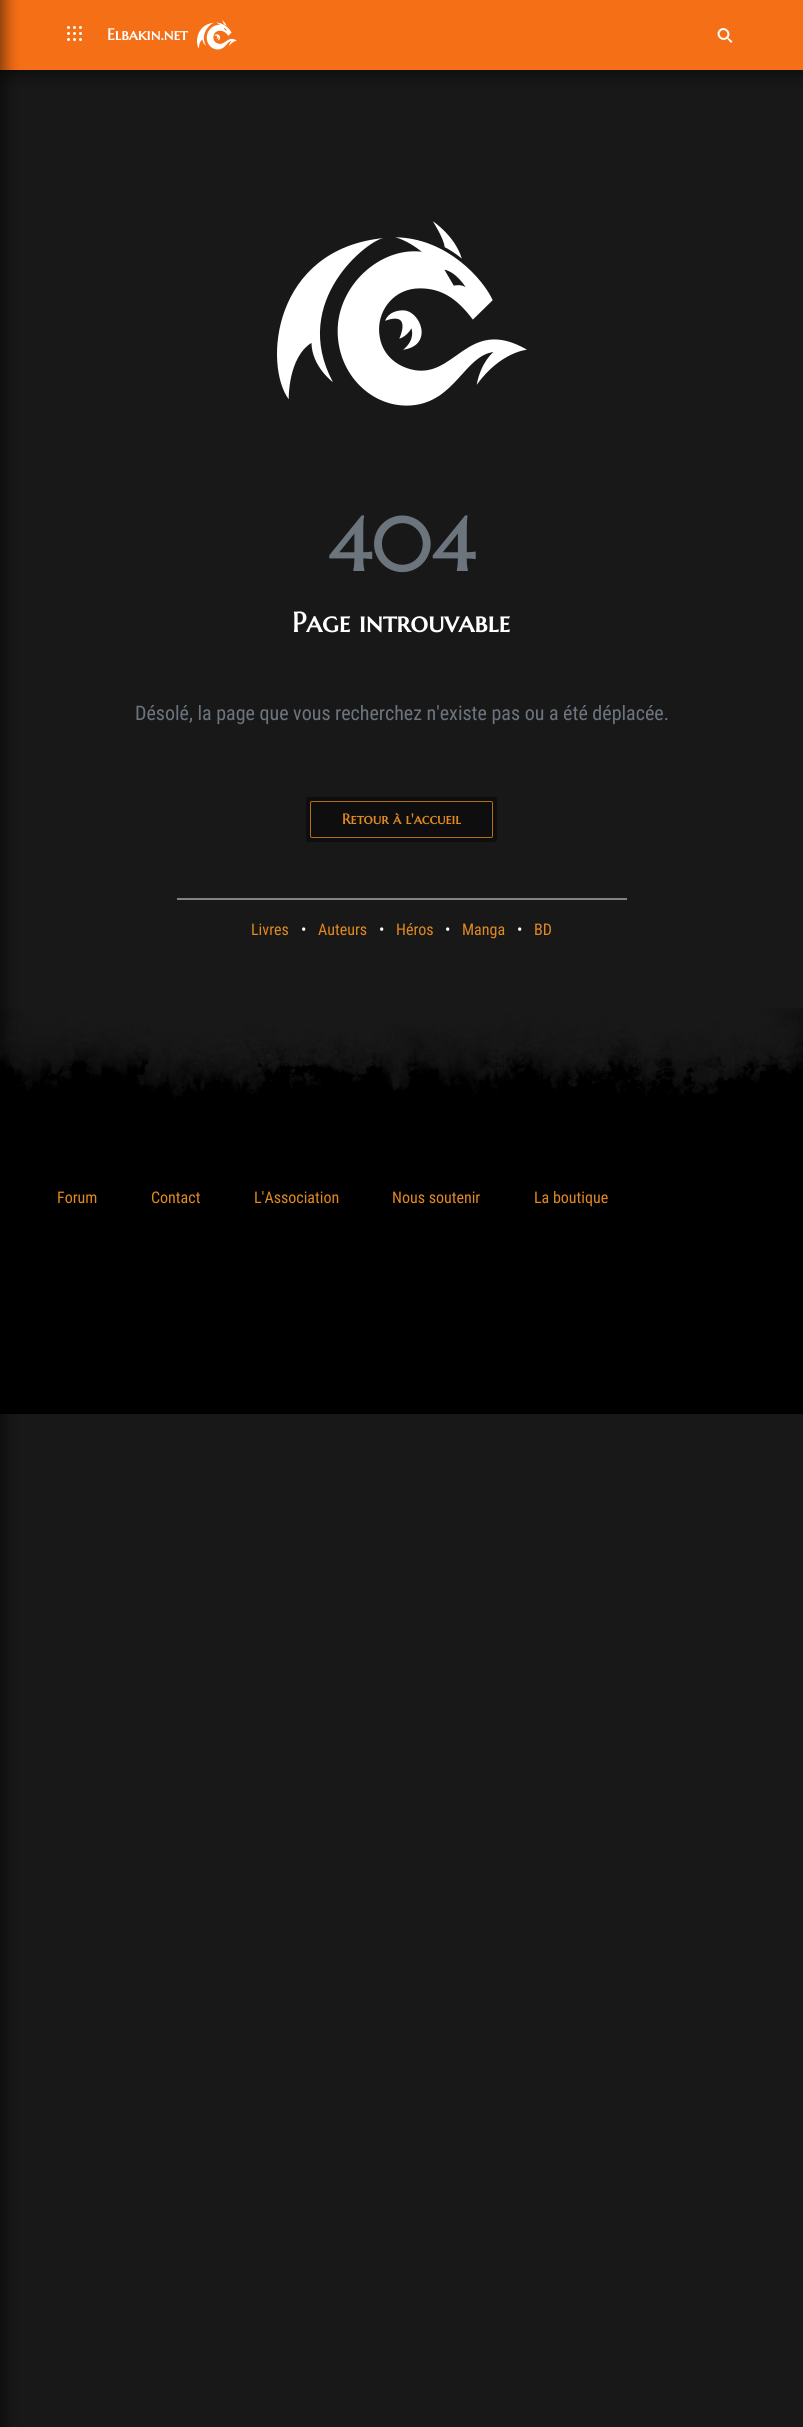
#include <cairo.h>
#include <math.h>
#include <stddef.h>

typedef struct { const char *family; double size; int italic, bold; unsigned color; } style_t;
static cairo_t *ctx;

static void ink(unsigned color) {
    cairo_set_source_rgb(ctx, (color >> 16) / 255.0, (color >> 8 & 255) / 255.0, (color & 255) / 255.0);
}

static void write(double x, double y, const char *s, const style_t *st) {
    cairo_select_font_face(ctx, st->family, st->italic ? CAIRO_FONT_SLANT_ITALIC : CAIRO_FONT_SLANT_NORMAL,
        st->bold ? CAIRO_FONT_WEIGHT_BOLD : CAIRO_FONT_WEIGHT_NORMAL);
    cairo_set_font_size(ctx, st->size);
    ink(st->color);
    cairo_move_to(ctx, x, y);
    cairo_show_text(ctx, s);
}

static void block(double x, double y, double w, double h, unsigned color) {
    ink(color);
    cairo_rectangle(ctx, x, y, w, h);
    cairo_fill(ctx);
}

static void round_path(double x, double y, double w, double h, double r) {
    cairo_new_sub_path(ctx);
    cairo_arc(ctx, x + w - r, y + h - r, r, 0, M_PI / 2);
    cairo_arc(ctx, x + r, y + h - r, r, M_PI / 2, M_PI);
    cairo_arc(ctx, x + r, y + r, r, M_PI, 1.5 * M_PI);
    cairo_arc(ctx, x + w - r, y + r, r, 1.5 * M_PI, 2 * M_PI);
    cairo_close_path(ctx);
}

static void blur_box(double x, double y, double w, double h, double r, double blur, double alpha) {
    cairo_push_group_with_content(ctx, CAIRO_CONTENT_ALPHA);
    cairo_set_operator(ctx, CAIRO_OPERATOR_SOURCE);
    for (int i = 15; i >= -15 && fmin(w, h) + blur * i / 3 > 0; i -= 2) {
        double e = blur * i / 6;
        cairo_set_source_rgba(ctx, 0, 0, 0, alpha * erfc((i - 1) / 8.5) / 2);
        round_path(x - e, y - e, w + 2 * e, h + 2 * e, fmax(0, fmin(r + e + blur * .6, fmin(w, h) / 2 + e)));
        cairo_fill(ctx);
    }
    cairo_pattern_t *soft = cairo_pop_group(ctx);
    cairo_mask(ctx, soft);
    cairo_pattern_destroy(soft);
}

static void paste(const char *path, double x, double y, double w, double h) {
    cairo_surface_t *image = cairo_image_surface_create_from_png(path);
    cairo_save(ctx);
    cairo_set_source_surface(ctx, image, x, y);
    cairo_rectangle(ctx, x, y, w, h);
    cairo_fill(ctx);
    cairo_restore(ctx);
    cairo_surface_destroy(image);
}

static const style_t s1 = {"Marcellus SC", 16, 0, 1, 0xffffff};
static const style_t s2 = {"Marcellus SC", 75, 0, 1, 0x6c757d};
static const style_t s3 = {"Marcellus SC", 28, 0, 1, 0xffffff};
static const style_t s4 = {"Roboto Condensed", 20, 0, 0, 0x6c757d};
static const style_t s5 = {"Marcellus SC", 14.5, 0, 1, 0xe08821};
static const style_t s6 = {"Roboto Condensed", 16, 0, 0, 0xe08821};
static const style_t s7 = {"Roboto Condensed", 16, 0, 0, 0xffffff};

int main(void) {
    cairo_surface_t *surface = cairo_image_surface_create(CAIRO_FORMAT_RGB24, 803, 2427);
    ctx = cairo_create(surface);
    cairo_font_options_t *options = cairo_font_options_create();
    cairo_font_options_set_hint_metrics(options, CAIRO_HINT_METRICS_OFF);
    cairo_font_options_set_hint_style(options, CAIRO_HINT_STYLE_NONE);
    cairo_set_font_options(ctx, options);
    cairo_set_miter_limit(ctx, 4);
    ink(0x181818);
    cairo_paint(ctx);
    ink(0x000000);
    blur_box(0, 5, 803, 70, 0, 7.5, 0.5);
    block(0, 0, 803, 70, 0xf56f16);
    block(0, 1119, 803, 295, 0x000000);
    paste("pic3.png", 0, 1008, 803, 111);
    ink(0x000000);
    blur_box(-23, -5, 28, 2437, 0, 7.5, 0.5);
    ink(0xffffff);
    cairo_arc(ctx, 68.5, 27.5, 1.5, 0, 2 * M_PI);
    cairo_fill(ctx);
    cairo_arc(ctx, 74.5, 27.5, 1.5, 0, 2 * M_PI);
    cairo_fill(ctx);
    cairo_arc(ctx, 80.5, 27.5, 1.5, 0, 2 * M_PI);
    cairo_fill(ctx);
    cairo_arc(ctx, 68.5, 33.5, 1.5, 0, 2 * M_PI);
    cairo_fill(ctx);
    cairo_arc(ctx, 74.5, 33.5, 1.5, 0, 2 * M_PI);
    cairo_fill(ctx);
    cairo_arc(ctx, 80.5, 33.5, 1.5, 0, 2 * M_PI);
    cairo_fill(ctx);
    cairo_arc(ctx, 68.5, 39.5, 1.5, 0, 2 * M_PI);
    cairo_fill(ctx);
    cairo_arc(ctx, 74.5, 39.5, 1.5, 0, 2 * M_PI);
    cairo_fill(ctx);
    cairo_arc(ctx, 80.5, 39.5, 1.5, 0, 2 * M_PI);
    cairo_fill(ctx);
    write(107, 40, "Elbakin.net", &s1);
    paste("pic1.png", 197, 20, 40, 30);
    cairo_new_path(ctx);
    cairo_move_to(ctx, 720, 30.5);
    cairo_curve_to(ctx, 724.5, 26, 731.5, 33, 727, 37.5);
    cairo_curve_to(ctx, 722.5, 42, 715.5, 35, 720, 30.5);
    cairo_close_path(ctx);
    cairo_stroke(ctx);
    cairo_new_path(ctx);
    cairo_move_to(ctx, 727, 38.5);
    cairo_line_to(ctx, 728, 37.5);
    cairo_line_to(ctx, 732.5, 41.5);
    cairo_line_to(ctx, 731, 43);
    cairo_close_path(ctx);
    cairo_fill(ctx);
    paste("pic2.png", 277, 221, 250, 185);
    write(328, 571, "404", &s2);
    write(292, 632, "Page introuvable", &s3);
    write(135, 720, "Désolé, la page que vous recherchez n'existe pas ou a été déplacée.", &s4);
    ink(0x0e0e0e);
    round_path(306, 797, 191, 45, 2);
    cairo_fill(ctx);
    round_path(310.5, 801.5, 182, 36, 1.5);
    ink(0xb56d19);
    cairo_set_line_width(ctx, 1);
    cairo_stroke(ctx);
    write(342, 824, "Retour à l'accueil", &s5);
    block(177, 898, 450, 2, 0x838383);
    write(251, 935, "Livres", &s6);
    write(301, 935, "•", &s7);
    write(318, 935, "Auteurs", &s6);
    write(379, 935, "•", &s7);
    write(396, 935, "Héros", &s6);
    write(445, 935, "•", &s7);
    write(462, 935, "Manga", &s6);
    write(517, 935, "•", &s7);
    write(534, 935, "BD", &s6);
    write(57, 1203, "Forum", &s6);
    write(151, 1203, "Contact", &s6);
    write(254, 1203, "L'Association", &s6);
    write(392, 1203, "Nous soutenir", &s6);
    write(534, 1203, "La boutique", &s6);
    cairo_surface_write_to_png(surface, "screenshot.png");
    cairo_font_options_destroy(options);
    cairo_destroy(ctx);
    cairo_surface_destroy(surface);
    return 0;
}
